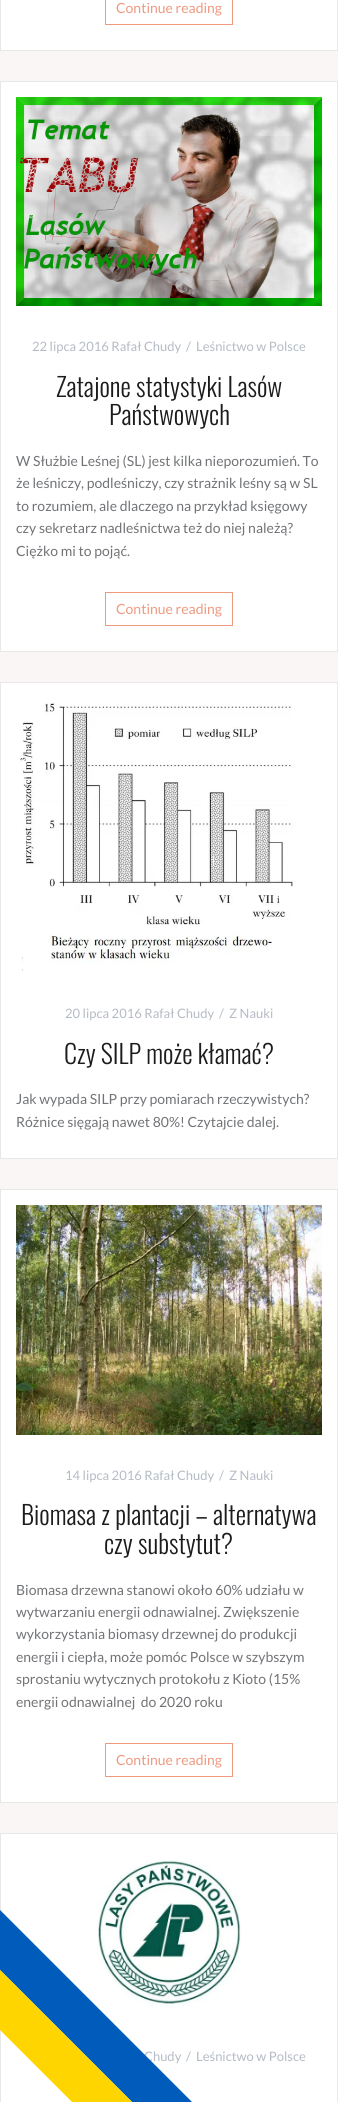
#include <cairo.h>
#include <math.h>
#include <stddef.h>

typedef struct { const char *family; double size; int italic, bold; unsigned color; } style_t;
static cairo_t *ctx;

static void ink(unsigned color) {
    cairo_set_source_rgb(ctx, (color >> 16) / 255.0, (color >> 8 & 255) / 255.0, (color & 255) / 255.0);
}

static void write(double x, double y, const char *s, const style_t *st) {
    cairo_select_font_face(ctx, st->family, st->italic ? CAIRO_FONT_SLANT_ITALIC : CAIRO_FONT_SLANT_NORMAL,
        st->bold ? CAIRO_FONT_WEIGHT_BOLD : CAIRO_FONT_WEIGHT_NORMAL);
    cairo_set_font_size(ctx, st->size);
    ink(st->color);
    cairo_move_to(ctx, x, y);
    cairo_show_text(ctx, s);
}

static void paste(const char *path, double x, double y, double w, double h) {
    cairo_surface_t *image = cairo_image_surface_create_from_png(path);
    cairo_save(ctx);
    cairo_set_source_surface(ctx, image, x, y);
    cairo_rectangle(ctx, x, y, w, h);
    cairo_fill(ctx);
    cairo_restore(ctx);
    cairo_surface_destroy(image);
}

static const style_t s1 = {"Lato", 14, 0, 0, 0xef997f};
static const style_t s2 = {"Lato", 13, 0, 0, 0xb5bbc5};
static const style_t s3 = {"Oswald Light", 26, 0, 0, 0x1c1c1c};
static const style_t s4 = {"Lato", 14, 0, 0, 0x717376};

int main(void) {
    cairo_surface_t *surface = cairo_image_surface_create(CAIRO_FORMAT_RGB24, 338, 2102);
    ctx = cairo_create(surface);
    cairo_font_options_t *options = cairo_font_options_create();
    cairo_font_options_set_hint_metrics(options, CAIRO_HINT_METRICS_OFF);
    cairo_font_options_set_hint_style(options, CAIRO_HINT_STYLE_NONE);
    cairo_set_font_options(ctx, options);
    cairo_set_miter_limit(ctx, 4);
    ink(0xf9f6f5);
    cairo_paint(ctx);
    ink(0xffffff);
    cairo_rectangle(ctx, 0.5, -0.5, 337, 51);
    cairo_fill_preserve(ctx);
    ink(0xe8e8e8);
    cairo_set_line_width(ctx, 1);
    cairo_stroke(ctx);
    cairo_rectangle(ctx, 105.5, -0.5, 127, 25);
    ink(0xef997f);
    cairo_stroke(ctx);
    write(116, 13, "Continue reading", &s1);
    ink(0xffffff);
    cairo_rectangle(ctx, 0.5, 81.5, 337, 570);
    cairo_fill_preserve(ctx);
    ink(0xe8e8e8);
    cairo_stroke(ctx);
    paste("pic1.png", 16, 97, 306, 209);
    write(32, 351, "22 lipca 2016 Rafał Chudy", &s2);
    write(186, 351, "/", &s2);
    write(196, 351, "Leśnictwo w Polsce", &s2);
    write(56, 397, "Zatajone statystyki Lasów", &s3);
    write(109, 425, "Państwowych", &s3);
    write(16, 466, "W Służbie Leśnej (SL) jest kilka nieporozumień. To", &s4);
    write(16, 488, "że leśniczy, podleśniczy, czy strażnik leśny są w SL", &s4);
    write(16, 511, "to rozumiem, ale dlaczego na przykład księgowy", &s4);
    write(16, 533, "czy sekretarz nadleśnictwa też do niej należą?", &s4);
    write(16, 556, "Ciężko mi to pojąć.", &s4);
    cairo_rectangle(ctx, 105.5, 592.5, 127, 33);
    ink(0xef997f);
    cairo_stroke(ctx);
    write(116, 614, "Continue reading", &s1);
    ink(0xffffff);
    cairo_rectangle(ctx, 0.5, 682.5, 337, 476);
    cairo_fill_preserve(ctx);
    ink(0xe8e8e8);
    cairo_stroke(ctx);
    paste("pic2.png", 19, 703, 275, 268);
    write(65, 1018, "20 lipca 2016 Rafał Chudy", &s2);
    write(219, 1018, "/", &s2);
    write(229, 1018, "Z Nauki", &s2);
    write(64, 1064, "Czy SILP może kłamać?", &s3);
    write(16, 1104, "Jak wypada SILP przy pomiarach rzeczywistych?", &s4);
    write(16, 1127, "Różnice sięgają nawet 80%! Czytajcie dalej.", &s4);
    ink(0xffffff);
    cairo_rectangle(ctx, 0.5, 1189.5, 337, 613);
    cairo_fill_preserve(ctx);
    ink(0xe8e8e8);
    cairo_stroke(ctx);
    paste("pic3.png", 16, 1205, 306, 230);
    write(65, 1480, "14 lipca 2016 Rafał Chudy", &s2);
    write(219, 1480, "/", &s2);
    write(229, 1480, "Z Nauki", &s2);
    write(21, 1525, "Biomasa z plantacji – alternatywa", &s3);
    write(104, 1554, "czy substytut?", &s3);
    write(16, 1595, "Biomasa drzewna stanowi około 60% udziału w", &s4);
    write(16, 1617, "wytwarzaniu energii odnawialnej. Zwiększenie", &s4);
    write(16, 1639, "wykorzystania biomasy drzewnej do produkcji", &s4);
    write(16, 1662, "energii i ciepła, może pomóc Polsce w szybszym", &s4);
    write(16, 1684, "sprostaniu wytycznych protokołu z Kioto (15%", &s4);
    write(16, 1707, "energii odnawialnej  do 2020 roku", &s4);
    cairo_rectangle(ctx, 105.5, 1743.5, 127, 33);
    ink(0xef997f);
    cairo_stroke(ctx);
    write(116, 1765, "Continue reading", &s1);
    ink(0xffffff);
    cairo_rectangle(ctx, 0.5, 1833.5, 337, 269);
    cairo_fill_preserve(ctx);
    ink(0xe8e8e8);
    cairo_stroke(ctx);
    paste("pic4.png", 97, 1860, 144, 146);
    write(144, 2061, "Chudy", &s2);
    write(186, 2061, "/", &s2);
    write(196, 2061, "Leśnictwo w Polsce", &s2);
    ink(0x005bbb);
    cairo_new_path(ctx);
    cairo_move_to(ctx, 206, 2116);
    cairo_line_to(ctx, 176, 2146);
    cairo_line_to(ctx, -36, 1934);
    cairo_line_to(ctx, -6, 1904);
    cairo_close_path(ctx);
    cairo_fill(ctx);
    ink(0xffd500);
    cairo_new_path(ctx);
    cairo_move_to(ctx, -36, 1934);
    cairo_line_to(ctx, 176, 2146);
    cairo_line_to(ctx, 146, 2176);
    cairo_line_to(ctx, -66, 1964);
    cairo_close_path(ctx);
    cairo_fill(ctx);
    cairo_surface_write_to_png(surface, "screenshot.png");
    cairo_font_options_destroy(options);
    cairo_destroy(ctx);
    cairo_surface_destroy(surface);
    return 0;
}
